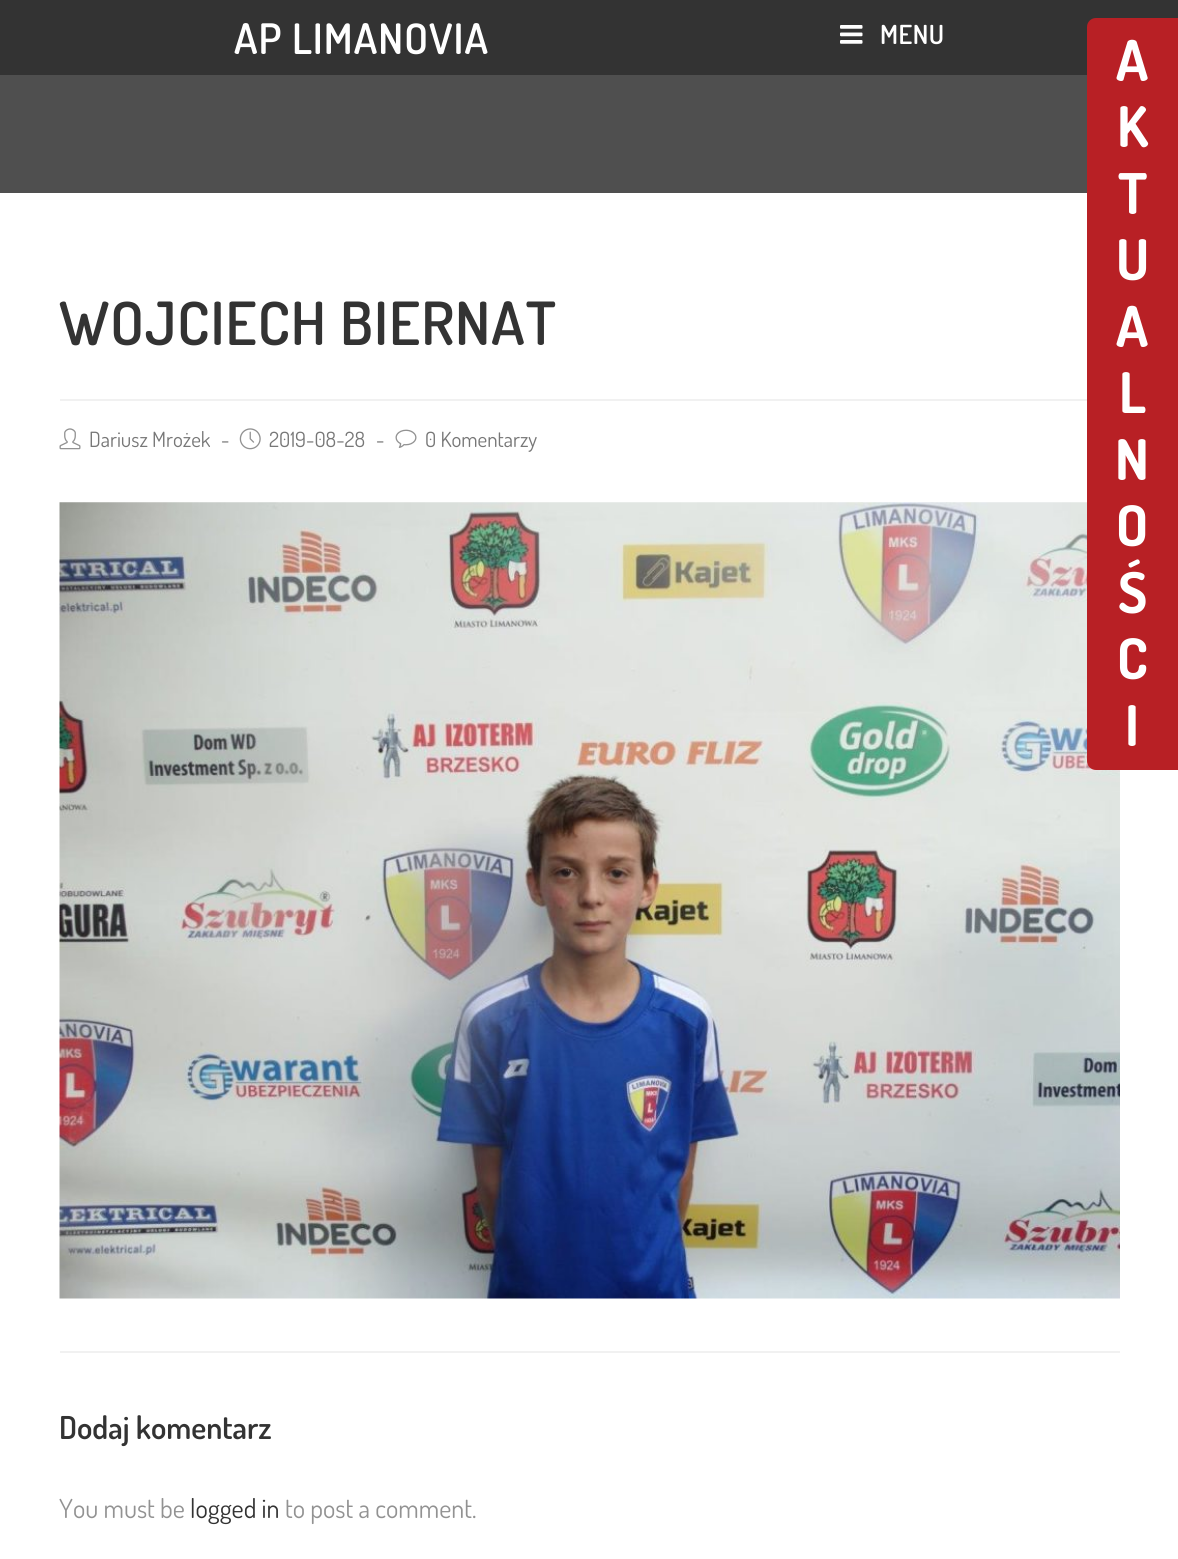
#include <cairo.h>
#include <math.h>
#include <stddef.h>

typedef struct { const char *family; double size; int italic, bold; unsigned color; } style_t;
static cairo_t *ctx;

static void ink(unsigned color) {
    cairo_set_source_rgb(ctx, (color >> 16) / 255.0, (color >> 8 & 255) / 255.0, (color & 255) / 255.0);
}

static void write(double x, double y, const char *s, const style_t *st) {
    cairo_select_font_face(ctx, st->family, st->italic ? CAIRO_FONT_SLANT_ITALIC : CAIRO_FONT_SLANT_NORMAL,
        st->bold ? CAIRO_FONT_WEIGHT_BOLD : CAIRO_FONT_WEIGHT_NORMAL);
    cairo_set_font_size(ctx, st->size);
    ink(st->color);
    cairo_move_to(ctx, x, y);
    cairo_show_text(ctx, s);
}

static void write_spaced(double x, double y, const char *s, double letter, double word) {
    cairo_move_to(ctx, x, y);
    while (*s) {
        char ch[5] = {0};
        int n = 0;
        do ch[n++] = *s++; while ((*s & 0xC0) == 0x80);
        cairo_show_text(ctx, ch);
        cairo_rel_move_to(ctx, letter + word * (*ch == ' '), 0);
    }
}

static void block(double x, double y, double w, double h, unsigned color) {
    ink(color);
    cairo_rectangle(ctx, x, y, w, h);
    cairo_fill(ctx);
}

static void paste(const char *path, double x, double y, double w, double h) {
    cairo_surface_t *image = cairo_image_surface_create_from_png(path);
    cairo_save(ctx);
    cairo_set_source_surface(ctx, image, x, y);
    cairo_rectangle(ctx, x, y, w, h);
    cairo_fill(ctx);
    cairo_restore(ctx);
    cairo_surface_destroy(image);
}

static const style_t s1 = {"Dosis", 21, 0, 0, 0x777777};
static const style_t s2 = {"Dosis SemiBold", 31.5, 0, 0, 0x333333};
static const style_t s3 = {"Dosis", 26.25, 0, 0, 0x929292};
static const style_t s4 = {"Dosis", 26.25, 0, 0, 0x333333};
static const style_t s5 = {"Dosis", 56, 0, 1, 0xffffff};

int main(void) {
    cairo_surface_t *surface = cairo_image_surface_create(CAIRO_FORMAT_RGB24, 1178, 1559);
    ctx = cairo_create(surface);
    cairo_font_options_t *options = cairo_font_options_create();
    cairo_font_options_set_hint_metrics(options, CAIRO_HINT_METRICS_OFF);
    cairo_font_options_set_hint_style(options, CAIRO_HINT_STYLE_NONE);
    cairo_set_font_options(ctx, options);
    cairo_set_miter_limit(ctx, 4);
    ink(0xffffff);
    cairo_paint(ctx);
    block(0, 0, 1178, 75, 0x333333);
    cairo_select_font_face(ctx, "Dosis SemiBold", CAIRO_FONT_SLANT_NORMAL, CAIRO_FONT_WEIGHT_NORMAL);
    cairo_set_font_size(ctx, 42);
    ink(0xffffff);
    write_spaced(234, 54, "AP LIMANOVIA", 1, 0);
    paste("pic1.png", 840, 25, 23, 19);
    cairo_set_font_size(ctx, 26.25);
    write_spaced(880, 44, "MENU", 0.5, 0);
    block(0, 75, 1087, 118, 0x4f4f4f);
    block(60, 399, 1027, 2, 0xf1f1f1);
    cairo_set_font_size(ctx, 59.5);
    ink(0x333333);
    write_spaced(59, 345, "WOJCIECH BIERNAT", 1, 0);
    paste("pic2.png", 59, 428, 22, 22);
    write(89, 447, "Dariusz Mrożek", &s1);
    write(221, 447, "-", &s1);
    paste("pic3.png", 239, 428, 22, 22);
    write(269, 447, "2019-08-28", &s1);
    write(376, 447, "-", &s1);
    paste("pic4.png", 395, 429, 22, 19);
    write(425, 447, "0 Komentarzy", &s1);
    paste("pic5.png", 59, 502, 1061, 797);
    block(60, 1351, 1060, 2, 0xf1f1f1);
    write(59, 1439, "Dodaj komentarz", &s2);
    write(59, 1518, "You must be", &s3);
    write(190, 1518, "logged in", &s4);
    write(285, 1518, "to post a comment.", &s3);
    ink(0xb82025);
    cairo_new_path(ctx);
    cairo_move_to(ctx, 1096, 18);
    cairo_line_to(ctx, 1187, 18);
    cairo_line_to(ctx, 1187, 770);
    cairo_line_to(ctx, 1096, 770);
    cairo_curve_to(ctx, 1091, 770, 1087, 766, 1087, 761);
    cairo_line_to(ctx, 1087, 27);
    cairo_curve_to(ctx, 1087, 22, 1091, 18, 1096, 18);
    cairo_close_path(ctx);
    cairo_fill(ctx);
    write(1116, 81, "A", &s5);
    write(1117, 147, "K", &s5);
    write(1118, 214, "T", &s5);
    write(1116, 280, "U", &s5);
    write(1116, 347, "A", &s5);
    write(1119, 413, "L", &s5);
    write(1115, 480, "N", &s5);
    write(1116, 546, "O", &s5);
    write(1118, 613, "Ś", &s5);
    write(1117, 679, "C", &s5);
    write(1125, 746, "I", &s5);
    cairo_surface_write_to_png(surface, "screenshot.png");
    cairo_font_options_destroy(options);
    cairo_destroy(ctx);
    cairo_surface_destroy(surface);
    return 0;
}
